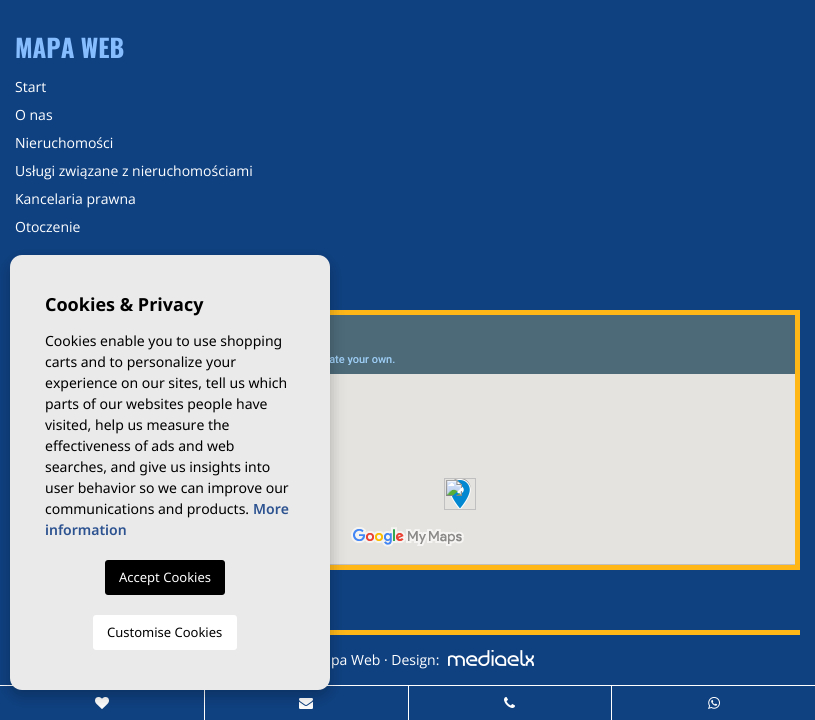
#include <cairo.h>
#include <math.h>
#include <stddef.h>

typedef struct { const char *family; double size; int italic, bold; unsigned color; } style_t;
static cairo_t *ctx;

static void ink(unsigned color) {
    cairo_set_source_rgb(ctx, (color >> 16) / 255.0, (color >> 8 & 255) / 255.0, (color & 255) / 255.0);
}

static void write(double x, double y, const char *s, const style_t *st) {
    cairo_select_font_face(ctx, st->family, st->italic ? CAIRO_FONT_SLANT_ITALIC : CAIRO_FONT_SLANT_NORMAL,
        st->bold ? CAIRO_FONT_WEIGHT_BOLD : CAIRO_FONT_WEIGHT_NORMAL);
    cairo_set_font_size(ctx, st->size);
    ink(st->color);
    cairo_move_to(ctx, x, y);
    cairo_show_text(ctx, s);
}

static void block(double x, double y, double w, double h, unsigned color) {
    ink(color);
    cairo_rectangle(ctx, x, y, w, h);
    cairo_fill(ctx);
}

static void round_path(double x, double y, double w, double h, double r) {
    cairo_new_sub_path(ctx);
    cairo_arc(ctx, x + w - r, y + h - r, r, 0, M_PI / 2);
    cairo_arc(ctx, x + r, y + h - r, r, M_PI / 2, M_PI);
    cairo_arc(ctx, x + r, y + r, r, M_PI, 1.5 * M_PI);
    cairo_arc(ctx, x + w - r, y + r, r, 1.5 * M_PI, 2 * M_PI);
    cairo_close_path(ctx);
}

static void blur_box(double x, double y, double w, double h, double r, double blur, double alpha) {
    cairo_push_group_with_content(ctx, CAIRO_CONTENT_ALPHA);
    cairo_set_operator(ctx, CAIRO_OPERATOR_SOURCE);
    for (int i = 15; i >= -15 && fmin(w, h) + blur * i / 3 > 0; i -= 2) {
        double e = blur * i / 6;
        cairo_set_source_rgba(ctx, 0, 0, 0, alpha * erfc((i - 1) / 8.5) / 2);
        round_path(x - e, y - e, w + 2 * e, h + 2 * e, fmax(0, fmin(r + e + blur * .6, fmin(w, h) / 2 + e)));
        cairo_fill(ctx);
    }
    cairo_pattern_t *soft = cairo_pop_group(ctx);
    cairo_mask(ctx, soft);
    cairo_pattern_destroy(soft);
}

static void paste(const char *path, double x, double y, double w, double h) {
    cairo_surface_t *image = cairo_image_surface_create_from_png(path);
    cairo_save(ctx);
    cairo_set_source_surface(ctx, image, x, y);
    cairo_rectangle(ctx, x, y, w, h);
    cairo_fill(ctx);
    cairo_restore(ctx);
    cairo_surface_destroy(image);
}

static const style_t s1 = {"Oswald", 25, 0, 1, 0x86bdff};
static const style_t s2 = {"Open Sans", 14, 0, 0, 0xffffff};
static const style_t s3 = {"Open Sans", 18, 0, 1, 0x000000};
static const style_t s4 = {"Noto Sans", 14, 0, 0, 0x000000};
static const style_t s5 = {"Noto Sans SemiBold", 14, 0, 0, 0x2c5290};
static const style_t s6 = {"Noto Sans", 13, 0, 0, 0xffffff};
static const style_t s7 = {"Noto Sans", 13, 0, 0, 0x000000};

int main(void) {
    cairo_surface_t *surface = cairo_image_surface_create(CAIRO_FORMAT_RGB24, 815, 720);
    ctx = cairo_create(surface);
    cairo_font_options_t *options = cairo_font_options_create();
    cairo_font_options_set_hint_metrics(options, CAIRO_HINT_METRICS_OFF);
    cairo_font_options_set_hint_style(options, CAIRO_HINT_STYLE_NONE);
    cairo_set_font_options(ctx, options);
    cairo_set_miter_limit(ctx, 4);
    ink(0x0f4181);
    cairo_paint(ctx);
    write(15, 58, "MAPA WEB", &s1);
    write(15, 92, "Start", &s2);
    write(15, 120, "O nas", &s2);
    write(15, 148, "Nieruchomości", &s2);
    write(15, 176, "Usługi związane z nieruchomościami", &s2);
    write(15, 204, "Kancelaria prawna", &s2);
    write(15, 232, "Otoczenie", &s2);
    cairo_rectangle(ctx, 17.5, 312.5, 780, 255);
    ink(0xffb718);
    cairo_set_line_width(ctx, 5);
    cairo_stroke(ctx);
    paste("pic1.png", 330, 315, 465, 250);
    block(330, 630, 470, 5, 0xffb718);
    write(331, 665, "pa Web · Design:", &s2);
    paste("pic2.png", 448, 650, 86, 16);
    block(0, 685, 815, 1, 0xffffff);
    paste("pic3.png", 95, 697, 14, 12);
    block(204, 686, 1, 34, 0xffffff);
    paste("pic4.png", 299, 698, 14, 11);
    ink(0x000000);
    blur_box(10, 261, 320, 435, 12, 8, 0.25);
    ink(0xeaeaea);
    round_path(10, 255, 320, 435, 12);
    cairo_fill(ctx);
    write(45, 311, "Cookies & Privacy", &s3);
    write(45, 346, "Cookies enable you to use shopping", &s4);
    write(45, 367, "carts and to personalize your", &s4);
    write(45, 388, "experience on our sites, tell us which", &s4);
    write(45, 409, "parts of our websites people have", &s4);
    write(45, 430, "visited, help us measure the", &s4);
    write(45, 451, "effectiveness of ads and web", &s4);
    write(45, 472, "searches, and give us insights into", &s4);
    write(45, 493, "user behavior so we can improve our", &s4);
    write(45, 514, "communications and products.", &s4);
    write(253, 514, "More", &s5);
    write(45, 535, "information", &s5);
    ink(0x000000);
    round_path(105, 560, 120, 35, 3);
    cairo_fill(ctx);
    write(119, 582, "Accept Cookies", &s6);
    round_path(93, 615, 144, 35, 3);
    cairo_fill(ctx);
    write(107, 637, "Customise Cookies", &s7);
    block(408, 686, 1, 34, 0xffffff);
    paste("pic5.png", 504, 697, 11, 11);
    block(611, 686, 1, 34, 0xffffff);
    paste("pic6.png", 708, 697, 12, 12);
    cairo_surface_write_to_png(surface, "screenshot.png");
    cairo_font_options_destroy(options);
    cairo_destroy(ctx);
    cairo_surface_destroy(surface);
    return 0;
}
